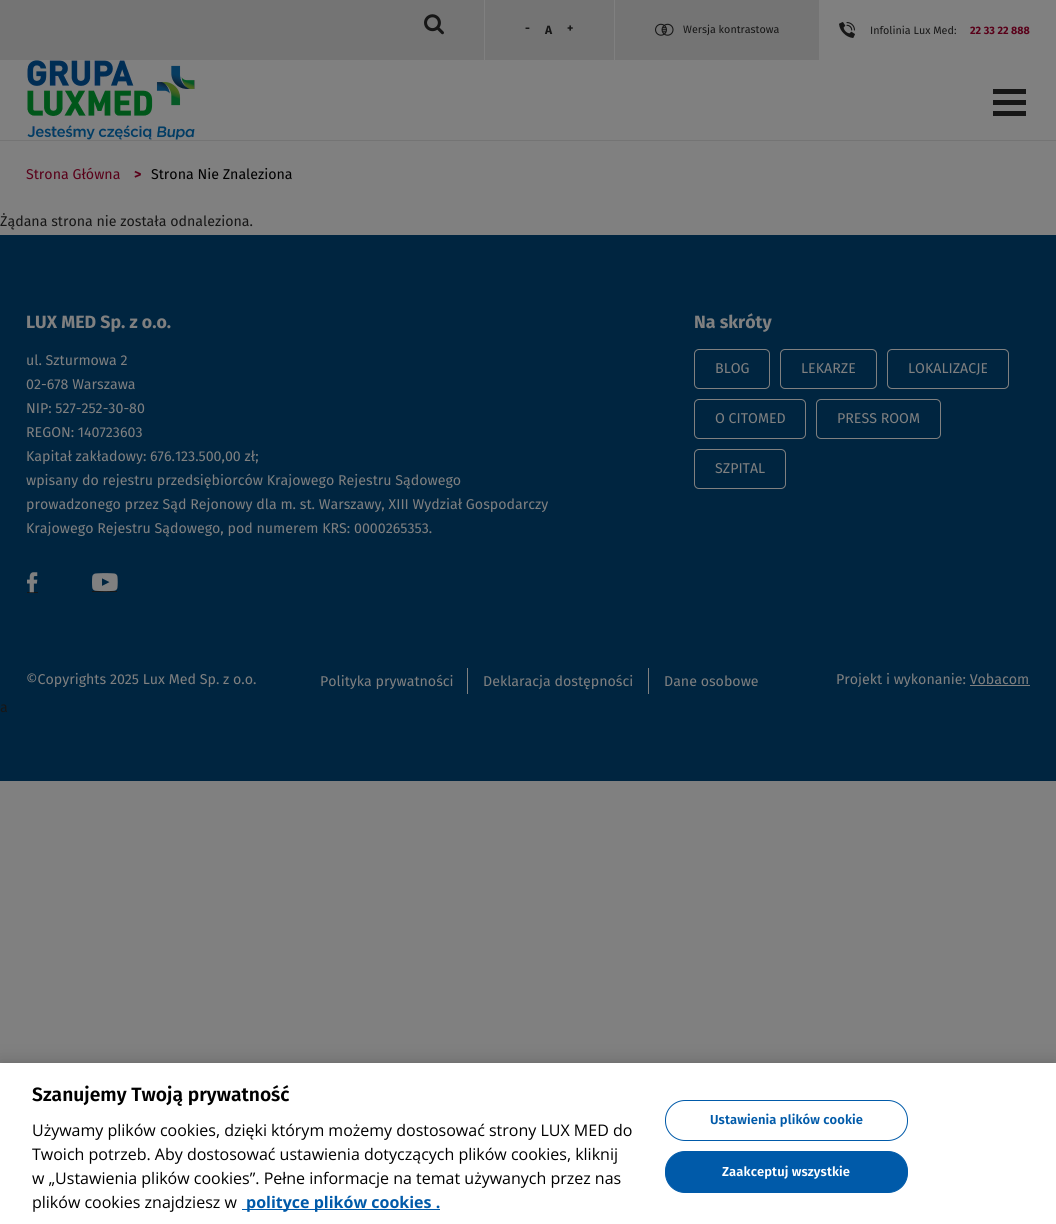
#include <cairo.h>
#include <math.h>
#include <stddef.h>

typedef struct { const char *family; double size; int italic, bold; unsigned color; } style_t;
static cairo_t *ctx;

static void ink(unsigned color) {
    cairo_set_source_rgb(ctx, (color >> 16) / 255.0, (color >> 8 & 255) / 255.0, (color & 255) / 255.0);
}

static void write(double x, double y, const char *s, const style_t *st) {
    cairo_select_font_face(ctx, st->family, st->italic ? CAIRO_FONT_SLANT_ITALIC : CAIRO_FONT_SLANT_NORMAL,
        st->bold ? CAIRO_FONT_WEIGHT_BOLD : CAIRO_FONT_WEIGHT_NORMAL);
    cairo_set_font_size(ctx, st->size);
    ink(st->color);
    cairo_move_to(ctx, x, y);
    cairo_show_text(ctx, s);
}

static void write_spaced(double x, double y, const char *s, double letter, double word) {
    cairo_move_to(ctx, x, y);
    while (*s) {
        char ch[5] = {0};
        int n = 0;
        do ch[n++] = *s++; while ((*s & 0xC0) == 0x80);
        cairo_show_text(ctx, ch);
        cairo_rel_move_to(ctx, letter + word * (*ch == ' '), 0);
    }
}

static void block(double x, double y, double w, double h, unsigned color) {
    ink(color);
    cairo_rectangle(ctx, x, y, w, h);
    cairo_fill(ctx);
}

static void round_path(double x, double y, double w, double h, double r) {
    cairo_new_sub_path(ctx);
    cairo_arc(ctx, x + w - r, y + h - r, r, 0, M_PI / 2);
    cairo_arc(ctx, x + r, y + h - r, r, M_PI / 2, M_PI);
    cairo_arc(ctx, x + r, y + r, r, M_PI, 1.5 * M_PI);
    cairo_arc(ctx, x + w - r, y + r, r, 1.5 * M_PI, 2 * M_PI);
    cairo_close_path(ctx);
}

static void blur_box(double x, double y, double w, double h, double r, double blur, double alpha) {
    cairo_push_group_with_content(ctx, CAIRO_CONTENT_ALPHA);
    cairo_set_operator(ctx, CAIRO_OPERATOR_SOURCE);
    for (int i = 15; i >= -15 && fmin(w, h) + blur * i / 3 > 0; i -= 2) {
        double e = blur * i / 6;
        cairo_set_source_rgba(ctx, 0, 0, 0, alpha * erfc((i - 1) / 8.5) / 2);
        round_path(x - e, y - e, w + 2 * e, h + 2 * e, fmax(0, fmin(r + e + blur * .6, fmin(w, h) / 2 + e)));
        cairo_fill(ctx);
    }
    cairo_pattern_t *soft = cairo_pop_group(ctx);
    cairo_mask(ctx, soft);
    cairo_pattern_destroy(soft);
}

static void paste(const char *path, double x, double y, double w, double h) {
    cairo_surface_t *image = cairo_image_surface_create_from_png(path);
    cairo_save(ctx);
    cairo_set_source_surface(ctx, image, x, y);
    cairo_rectangle(ctx, x, y, w, h);
    cairo_fill(ctx);
    cairo_restore(ctx);
    cairo_surface_destroy(image);
}

static const style_t s1 = {"Fira Sans", 12, 0, 1, 0x161616};
static const style_t s2 = {"Fira Sans", 10.75, 0, 0, 0x161616};
static const style_t s3 = {"Fira Sans", 10.75, 0, 1, 0x590019};
static const style_t s4 = {"Fira Sans", 14.2, 0, 0, 0x590019};
static const style_t s5 = {"Fira Sans", 14.2, 0, 1, 0x590019};
static const style_t s6 = {"Fira Sans", 14.2, 0, 0, 0x000000};
static const style_t s7 = {"Fira Sans", 14.2, 0, 0, 0x161616};
static const style_t s8 = {"Fira Sans", 17.75, 0, 1, 0x808080};
static const style_t s9 = {"Fira Sans", 14.2, 0, 0, 0x808080};
static const style_t s10 = {"Fira Sans SemiBold", 19.25, 0, 0, 0x000000};
static const style_t s11 = {"Open Sans", 16, 0, 0, 0x000000};
static const style_t s12 = {"Open Sans", 16, 0, 1, 0x005aa9};

int main(void) {
    cairo_surface_t *surface = cairo_image_surface_create(CAIRO_FORMAT_RGB24, 1056, 1224);
    ctx = cairo_create(surface);
    cairo_font_options_t *options = cairo_font_options_create();
    cairo_font_options_set_hint_metrics(options, CAIRO_HINT_METRICS_OFF);
    cairo_font_options_set_hint_style(options, CAIRO_HINT_STYLE_NONE);
    cairo_set_font_options(ctx, options);
    cairo_set_miter_limit(ctx, 4);
    ink(0x808080);
    cairo_paint(ctx);
    block(0, 0, 819, 60, 0x747474);
    paste("pic1.png", 424, 14, 20, 21);
    block(484, 0, 1, 60, 0x808080);
    write(525, 32, "-", &s1);
    write(545, 34, "A", &s1);
    write(567, 32, "+", &s1);
    block(614, 0, 1, 60, 0x808080);
    paste("pic2.png", 655, 23, 19, 13);
    write(683, 33, "Wersja kontrastowa", &s2);
    paste("pic3.png", 839, 22, 16, 16);
    write(870, 34, "Infolinia Lux Med:", &s2);
    write(970, 34, "22 33 22 888", &s3);
    paste("pic4.png", 27, 60, 168, 80);
    block(993, 89, 33, 5, 0x161616);
    block(993, 100, 33, 5, 0x161616);
    block(993, 111, 33, 5, 0x161616);
    block(0, 140, 1056, 1, 0x747474);
    write(26, 179, "Strona Główna", &s4);
    write(134, 179, ">", &s5);
    write(151, 179, "Strona Nie Znaleziona", &s6);
    write(0, 226, "Żądana strona nie została odnaleziona.", &s7);
    block(0, 235, 1056, 546, 0x002540);
    write(26, 328, "LUX MED Sp. z o.o.", &s8);
    write(26, 365, "ul. Szturmowa 2", &s9);
    write(26, 389, "02-678 Warszawa", &s9);
    write(26, 413, "NIP: 527-252-30-80", &s9);
    write(26, 437, "REGON: 140723603", &s9);
    write(26, 461, "Kapitał zakładowy: 676.123.500,00 zł;", &s9);
    write(26, 485, "wpisany do rejestru przedsiębiorców Krajowego Rejestru Sądowego", &s9);
    write(26, 509, "prowadzonego przez Sąd Rejonowy dla m. st. Warszawy, XIII Wydział Gospodarczy", &s9);
    write(26, 533, "Krajowego Rejestru Sądowego, pod numerem KRS: 0000265353.", &s9);
    block(27, 592, 11, 1, 0x161616);
    paste("pic5.png", 27, 572, 11, 21);
    block(92, 591, 25, 1, 0x161616);
    paste("pic6.png", 92, 573, 26, 19);
    write(694, 328, "Na skróty", &s8);
    round_path(694.5, 349.5, 75, 39, 4.5);
    cairo_set_line_width(ctx, 1);
    cairo_stroke(ctx);
    write(715, 373, "BLOG", &s9);
    round_path(780.5, 349.5, 96, 39, 4.5);
    cairo_stroke(ctx);
    write(801, 373, "LEKARZE", &s9);
    round_path(887.5, 349.5, 121, 39, 4.5);
    cairo_stroke(ctx);
    write(908, 373, "LOKALIZACJE", &s9);
    round_path(694.5, 399.5, 111, 39, 4.5);
    cairo_stroke(ctx);
    write(715, 423, "O CITOMED", &s9);
    round_path(816.5, 399.5, 124, 39, 4.5);
    cairo_stroke(ctx);
    write(837, 423, "PRESS ROOM", &s9);
    round_path(694.5, 449.5, 91, 39, 4.5);
    cairo_stroke(ctx);
    write(715, 473, "SZPITAL", &s9);
    write(26, 684, "©Copyrights 2025 Lux Med Sp. z o.o.", &s9);
    write(320, 686, "Polityka prywatności", &s9);
    block(467, 668, 1, 26, 0x808080);
    write(483, 686, "Deklaracja dostępności", &s9);
    block(648, 668, 1, 26, 0x808080);
    write(664, 686, "Dane osobowe", &s9);
    write(836, 684, "Projekt i wykonanie: Vobacom", &s9);
    block(970, 685, 60, 1, 0x808080);
    write(0, 712, "a", &s7);
    ink(0x000000);
    blur_box(0, 1063, 1056, 161, 0, 9, 0.2);
    block(0, 1063, 1056, 161, 0xffffff);
    write(32, 1101, "Szanujemy Twoją prywatność", &s10);
    write(32, 1136, "Używamy plików cookies, dzięki którym możemy dostosować strony LUX MED do", &s11);
    write(32, 1160, "Twoich potrzeb. Aby dostosować ustawienia dotyczących plików cookies, kliknij", &s11);
    write(32, 1184, "w „Ustawienia plików cookies”. Pełne informacje na temat używanych przez nas", &s11);
    write(32, 1208, "plików cookies znajdziesz w", &s11);
    block(242, 1209, 198, 1, 0x005aa9);
    write(246, 1208, "polityce plików cookies .", &s12);
    round_path(665.5, 1100.5, 242, 40, 19.5);
    cairo_stroke(ctx);
    cairo_select_font_face(ctx, "Fira Sans SemiBold", CAIRO_FONT_SLANT_NORMAL, CAIRO_FONT_WEIGHT_NORMAL);
    cairo_set_font_size(ctx, 13);
    write_spaced(710, 1124, "Ustawienia plików cookie", 0.1, 0);
    round_path(665.5, 1151.5, 242, 41, 19.5);
    cairo_fill_preserve(ctx);
    cairo_stroke(ctx);
    ink(0xffffff);
    write_spaced(722, 1176, "Zaakceptuj wszystkie", 0.1, 0);
    cairo_surface_write_to_png(surface, "screenshot.png");
    cairo_font_options_destroy(options);
    cairo_destroy(ctx);
    cairo_surface_destroy(surface);
    return 0;
}
